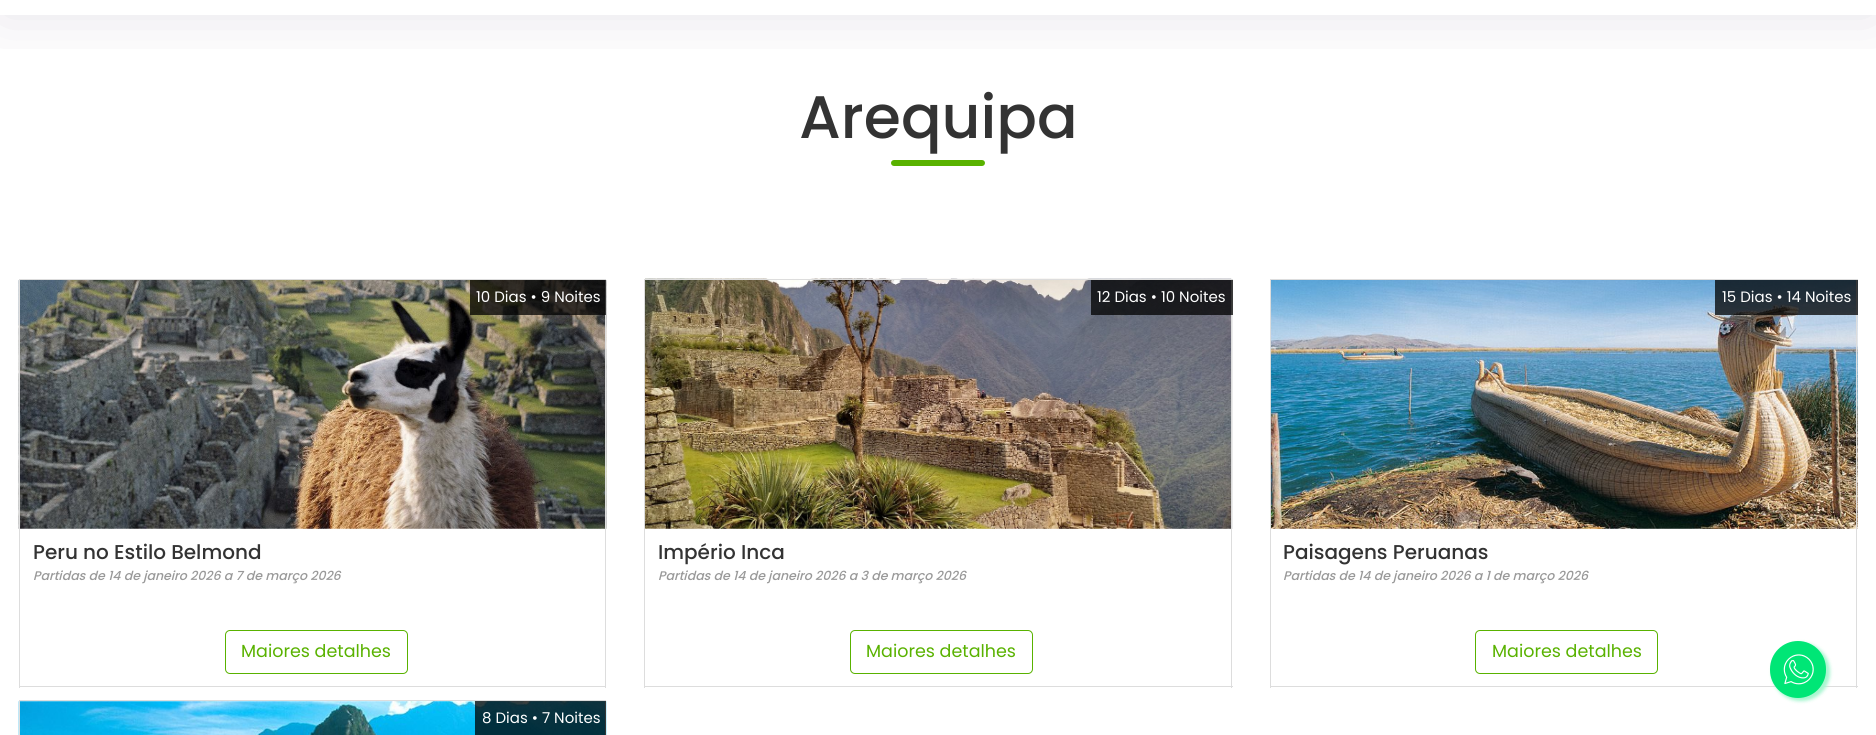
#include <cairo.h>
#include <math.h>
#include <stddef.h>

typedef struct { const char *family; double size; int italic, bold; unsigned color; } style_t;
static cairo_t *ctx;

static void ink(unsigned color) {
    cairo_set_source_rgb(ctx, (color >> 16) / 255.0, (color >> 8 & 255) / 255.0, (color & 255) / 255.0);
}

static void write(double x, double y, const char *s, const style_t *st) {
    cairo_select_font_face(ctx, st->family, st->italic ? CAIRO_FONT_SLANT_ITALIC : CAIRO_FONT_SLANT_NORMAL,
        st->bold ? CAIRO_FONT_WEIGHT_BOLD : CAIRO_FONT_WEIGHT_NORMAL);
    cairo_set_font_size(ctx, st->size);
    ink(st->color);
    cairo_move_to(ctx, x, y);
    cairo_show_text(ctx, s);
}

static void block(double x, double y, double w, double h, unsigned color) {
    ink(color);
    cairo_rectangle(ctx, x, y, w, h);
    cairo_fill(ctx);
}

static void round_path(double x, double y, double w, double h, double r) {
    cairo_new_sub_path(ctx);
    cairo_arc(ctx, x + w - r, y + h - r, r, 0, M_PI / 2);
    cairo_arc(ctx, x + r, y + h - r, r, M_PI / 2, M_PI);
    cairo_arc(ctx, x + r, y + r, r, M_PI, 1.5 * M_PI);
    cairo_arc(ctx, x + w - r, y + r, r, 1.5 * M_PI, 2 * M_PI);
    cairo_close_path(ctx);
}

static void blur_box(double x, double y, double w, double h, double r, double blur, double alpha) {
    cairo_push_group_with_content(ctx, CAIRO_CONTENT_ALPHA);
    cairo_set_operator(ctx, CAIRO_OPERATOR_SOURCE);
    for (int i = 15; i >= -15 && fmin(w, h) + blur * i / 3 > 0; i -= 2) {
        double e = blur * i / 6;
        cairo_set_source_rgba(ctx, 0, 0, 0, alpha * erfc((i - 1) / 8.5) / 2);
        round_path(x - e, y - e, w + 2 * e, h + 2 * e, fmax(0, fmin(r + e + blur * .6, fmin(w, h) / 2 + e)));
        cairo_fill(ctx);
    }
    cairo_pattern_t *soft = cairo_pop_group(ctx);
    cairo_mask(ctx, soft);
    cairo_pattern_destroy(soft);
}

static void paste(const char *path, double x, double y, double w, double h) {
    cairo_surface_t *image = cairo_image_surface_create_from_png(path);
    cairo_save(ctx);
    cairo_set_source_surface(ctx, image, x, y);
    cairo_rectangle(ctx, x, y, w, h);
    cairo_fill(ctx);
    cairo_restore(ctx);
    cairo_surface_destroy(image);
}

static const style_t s1 = {"Poppins Medium", 60, 0, 0, 0x333333};
static const style_t s2 = {"Poppins", 15, 0, 0, 0xffffff};
static const style_t s3 = {"Poppins Medium", 20, 0, 0, 0x333333};
static const style_t s4 = {"Poppins Medium", 12.5, 1, 0, 0x999999};
static const style_t s5 = {"Poppins", 17.5, 0, 0, 0x59b200};

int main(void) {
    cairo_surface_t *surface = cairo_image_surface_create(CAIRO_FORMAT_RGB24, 1876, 735);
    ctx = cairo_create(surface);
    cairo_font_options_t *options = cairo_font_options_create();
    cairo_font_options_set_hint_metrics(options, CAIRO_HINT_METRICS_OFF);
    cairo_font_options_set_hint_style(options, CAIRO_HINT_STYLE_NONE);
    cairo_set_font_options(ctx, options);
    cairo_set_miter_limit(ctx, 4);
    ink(0xffffff);
    cairo_paint(ctx);
    cairo_save(ctx);
    cairo_rectangle(ctx, 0, 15, 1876, 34);
    cairo_clip(ctx);
    ink(0x523f69);
    blur_box(0, -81, 1876, 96, 0, 31, 0.15);
    cairo_restore(ctx);
    write(799, 138, "Arequipa", &s1);
    ink(0x59b200);
    round_path(891, 160, 94, 6, 3);
    cairo_fill(ctx);
    paste("pic1.png", 18, 280, 589, 249);
    block(19, 279, 587, 1, 0xdddddd);
    block(605, 279, 1, 409, 0xdddddd);
    block(19, 279, 1, 250, 0xdddddd);
    cairo_set_source_rgba(ctx, 0, 0, 0, 0.75);
    cairo_rectangle(ctx, 470, 280, 136, 35);
    cairo_fill(ctx);
    write(476, 302, "10 Dias • 9 Noites", &s2);
    block(19, 686, 587, 1, 0xdddddd);
    block(19, 529, 1, 159, 0xdddddd);
    write(33, 559, "Peru no Estilo Belmond", &s3);
    write(33, 580, "Partidas de 14 de janeiro 2026 a 7 de março 2026", &s4);
    round_path(225.5, 630.5, 182, 43, 4.5);
    ink(0x59b200);
    cairo_set_line_width(ctx, 1);
    cairo_stroke(ctx);
    write(241, 657, "Maiores detalhes", &s5);
    block(645, 280, 588, 249, 0xececec);
    paste("pic2.png", 645, 278, 587, 251);
    block(644, 279, 589, 1, 0xdddddd);
    block(1231, 279, 1, 409, 0xdddddd);
    block(644, 279, 1, 250, 0xdddddd);
    cairo_set_source_rgba(ctx, 0, 0, 0, 0.75);
    cairo_rectangle(ctx, 1091, 280, 142, 35);
    cairo_fill(ctx);
    write(1097, 302, "12 Dias • 10 Noites", &s2);
    block(644, 686, 589, 1, 0xdddddd);
    block(644, 529, 1, 159, 0xdddddd);
    write(658, 559, "Império Inca", &s3);
    write(658, 580, "Partidas de 14 de janeiro 2026 a 3 de março 2026", &s4);
    round_path(850.5, 630.5, 182, 43, 4.5);
    ink(0x59b200);
    cairo_stroke(ctx);
    write(866, 657, "Maiores detalhes", &s5);
    block(1271, 280, 587, 249, 0xececec);
    paste("pic3.png", 1271, 280, 587, 249);
    block(1270, 279, 588, 1, 0xdddddd);
    block(1856, 279, 1, 409, 0xdddddd);
    block(1270, 279, 1, 250, 0xdddddd);
    cairo_set_source_rgba(ctx, 0, 0, 0, 0.75);
    cairo_rectangle(ctx, 1715, 280, 143, 35);
    cairo_fill(ctx);
    write(1722, 302, "15 Dias • 14 Noites", &s2);
    block(1270, 686, 588, 1, 0xdddddd);
    block(1270, 529, 1, 159, 0xdddddd);
    write(1283, 559, "Paisagens Peruanas", &s3);
    write(1283, 580, "Partidas de 14 de janeiro 2026 a 1 de março 2026", &s4);
    round_path(1475.5, 630.5, 182, 43, 4.5);
    ink(0x59b200);
    cairo_stroke(ctx);
    write(1492, 657, "Maiores detalhes", &s5);
    paste("pic4.png", 18, 701, 589, 34);
    block(19, 700, 587, 1, 0xdddddd);
    block(605, 700, 1, 35, 0xdddddd);
    block(19, 700, 1, 35, 0xdddddd);
    cairo_set_source_rgba(ctx, 0, 0, 0, 0.75);
    cairo_rectangle(ctx, 475, 701, 131, 34);
    cairo_fill(ctx);
    write(482, 723, "8 Dias • 7 Noites", &s2);
    ink(0xa8f6d0);
    blur_box(1773, 644, 56, 56, 28, 2, 1);
    blur_box(1773, 644, 56, 56, 28, 2, 1);
    ink(0x00e676);
    round_path(1770, 641, 56, 57, 28);
    cairo_fill(ctx);
    paste("pic5.png", 1783, 654, 31, 31);
    cairo_surface_write_to_png(surface, "screenshot.png");
    cairo_font_options_destroy(options);
    cairo_destroy(ctx);
    cairo_surface_destroy(surface);
    return 0;
}
